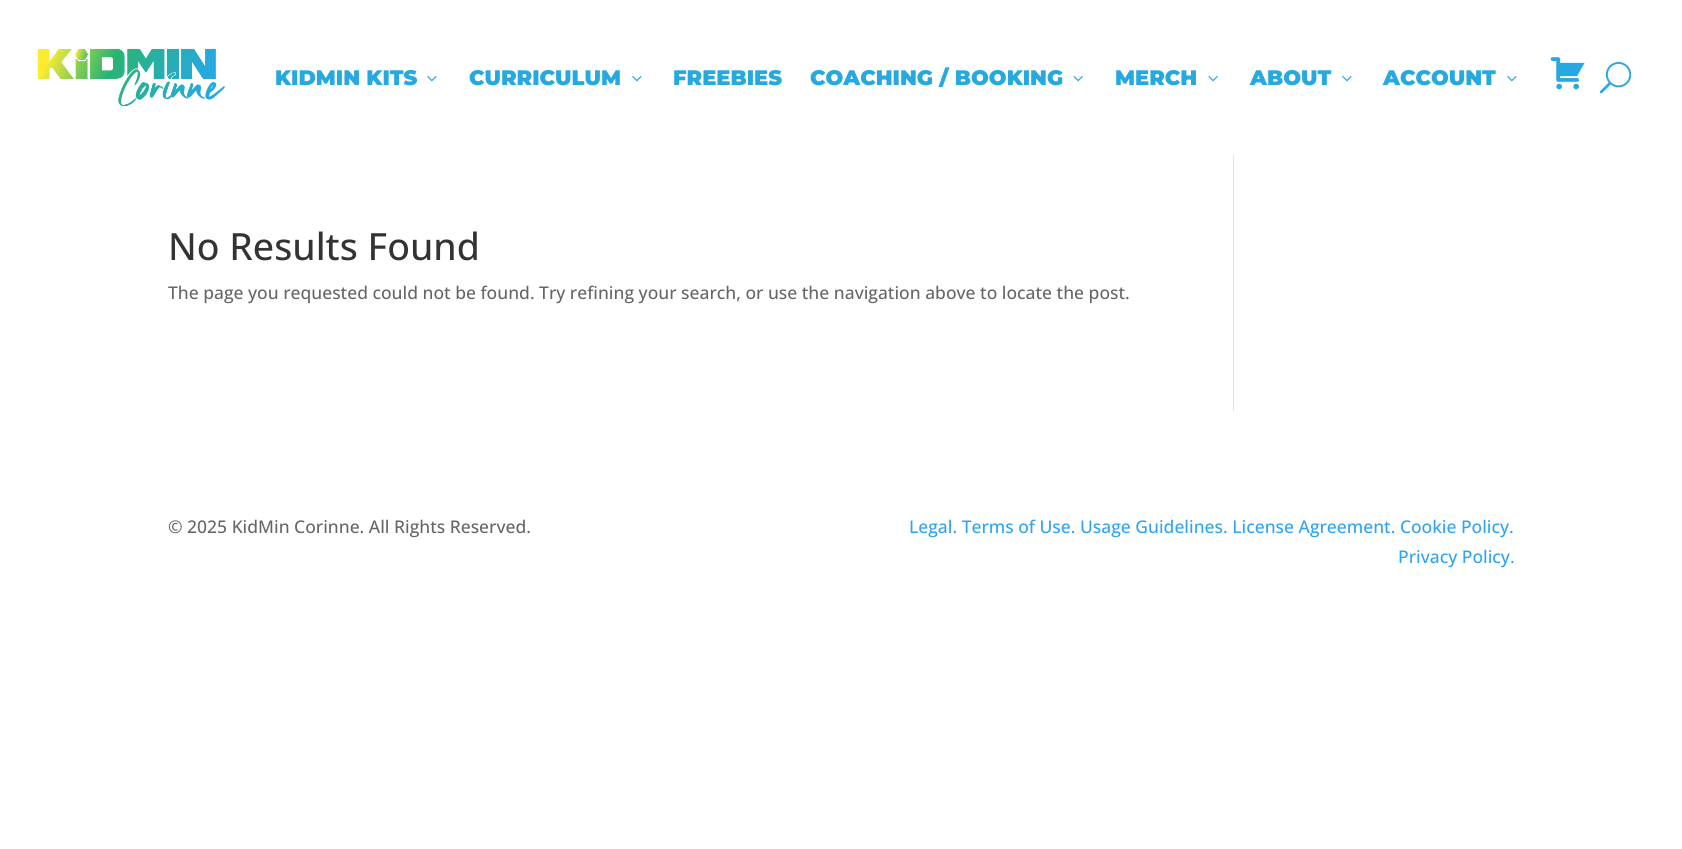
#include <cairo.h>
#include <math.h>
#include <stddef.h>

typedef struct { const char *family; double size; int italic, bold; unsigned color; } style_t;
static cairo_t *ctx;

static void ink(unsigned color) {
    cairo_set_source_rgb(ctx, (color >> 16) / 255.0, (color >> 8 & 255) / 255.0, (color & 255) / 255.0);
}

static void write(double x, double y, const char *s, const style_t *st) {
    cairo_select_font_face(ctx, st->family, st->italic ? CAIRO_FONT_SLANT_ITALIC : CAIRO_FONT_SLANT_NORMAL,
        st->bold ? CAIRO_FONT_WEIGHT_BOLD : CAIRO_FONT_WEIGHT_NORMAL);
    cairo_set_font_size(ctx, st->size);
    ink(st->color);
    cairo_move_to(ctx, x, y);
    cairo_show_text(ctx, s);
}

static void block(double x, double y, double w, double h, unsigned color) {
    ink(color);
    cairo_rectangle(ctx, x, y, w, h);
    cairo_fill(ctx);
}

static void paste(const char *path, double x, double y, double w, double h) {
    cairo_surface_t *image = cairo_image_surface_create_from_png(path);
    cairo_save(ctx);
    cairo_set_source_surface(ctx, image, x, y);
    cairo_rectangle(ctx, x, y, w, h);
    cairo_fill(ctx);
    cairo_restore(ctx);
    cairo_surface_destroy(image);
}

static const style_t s1 = {"Montserrat Thin", 21, 0, 0, 0x26a9e0};
static const style_t s2 = {"Open Sans Medium", 37.5, 0, 0, 0x333333};
static const style_t s3 = {"Open Sans Medium", 17.5, 0, 0, 0x666666};
static const style_t s4 = {"Open Sans Medium", 17.5, 0, 0, 0x2ea3f2};

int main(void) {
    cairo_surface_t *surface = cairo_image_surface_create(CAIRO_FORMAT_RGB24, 1682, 849);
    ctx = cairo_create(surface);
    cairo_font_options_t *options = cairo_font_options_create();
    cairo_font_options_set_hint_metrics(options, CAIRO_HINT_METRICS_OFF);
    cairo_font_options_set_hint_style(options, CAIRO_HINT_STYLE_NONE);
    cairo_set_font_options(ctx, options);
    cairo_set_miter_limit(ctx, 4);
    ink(0xffffff);
    cairo_paint(ctx);
    paste("pic1.png", 37, 48, 188, 59);
    write(275, 85, "KIDMIN KITS", &s1);
    paste("pic2.png", 427, 76, 10, 6);
    write(469, 85, "CURRICULUM", &s1);
    paste("pic2.png", 632, 76, 10, 6);
    write(673, 85, "FREEBIES", &s1);
    write(810, 85, "COACHING / BOOKING", &s1);
    paste("pic3.png", 1073, 76, 10, 6);
    write(1115, 85, "MERCH", &s1);
    paste("pic3.png", 1208, 76, 10, 6);
    write(1250, 85, "ABOUT", &s1);
    paste("pic2.png", 1342, 76, 10, 6);
    write(1383, 85, "ACCOUNT", &s1);
    paste("pic2.png", 1507, 76, 10, 6);
    paste("pic4.png", 1550, 57, 35, 33);
    paste("pic5.png", 1599, 62, 33, 32);
    write(168, 260, "No Results Found", &s2);
    write(168, 299, "The page you requested could not be found. Try refining your search, or use the navigation above to locate the post.", &s3);
    block(1233, 155, 1, 256, 0xe2e2e2);
    write(168, 533, "© 2025 KidMin Corinne. All Rights Reserved.", &s3);
    write(909, 533, "Legal. Terms of Use. Usage Guidelines. License Agreement. Cookie Policy.", &s4);
    write(1398, 563, "Privacy Policy.", &s4);
    cairo_surface_write_to_png(surface, "screenshot.png");
    cairo_font_options_destroy(options);
    cairo_destroy(ctx);
    cairo_surface_destroy(surface);
    return 0;
}
